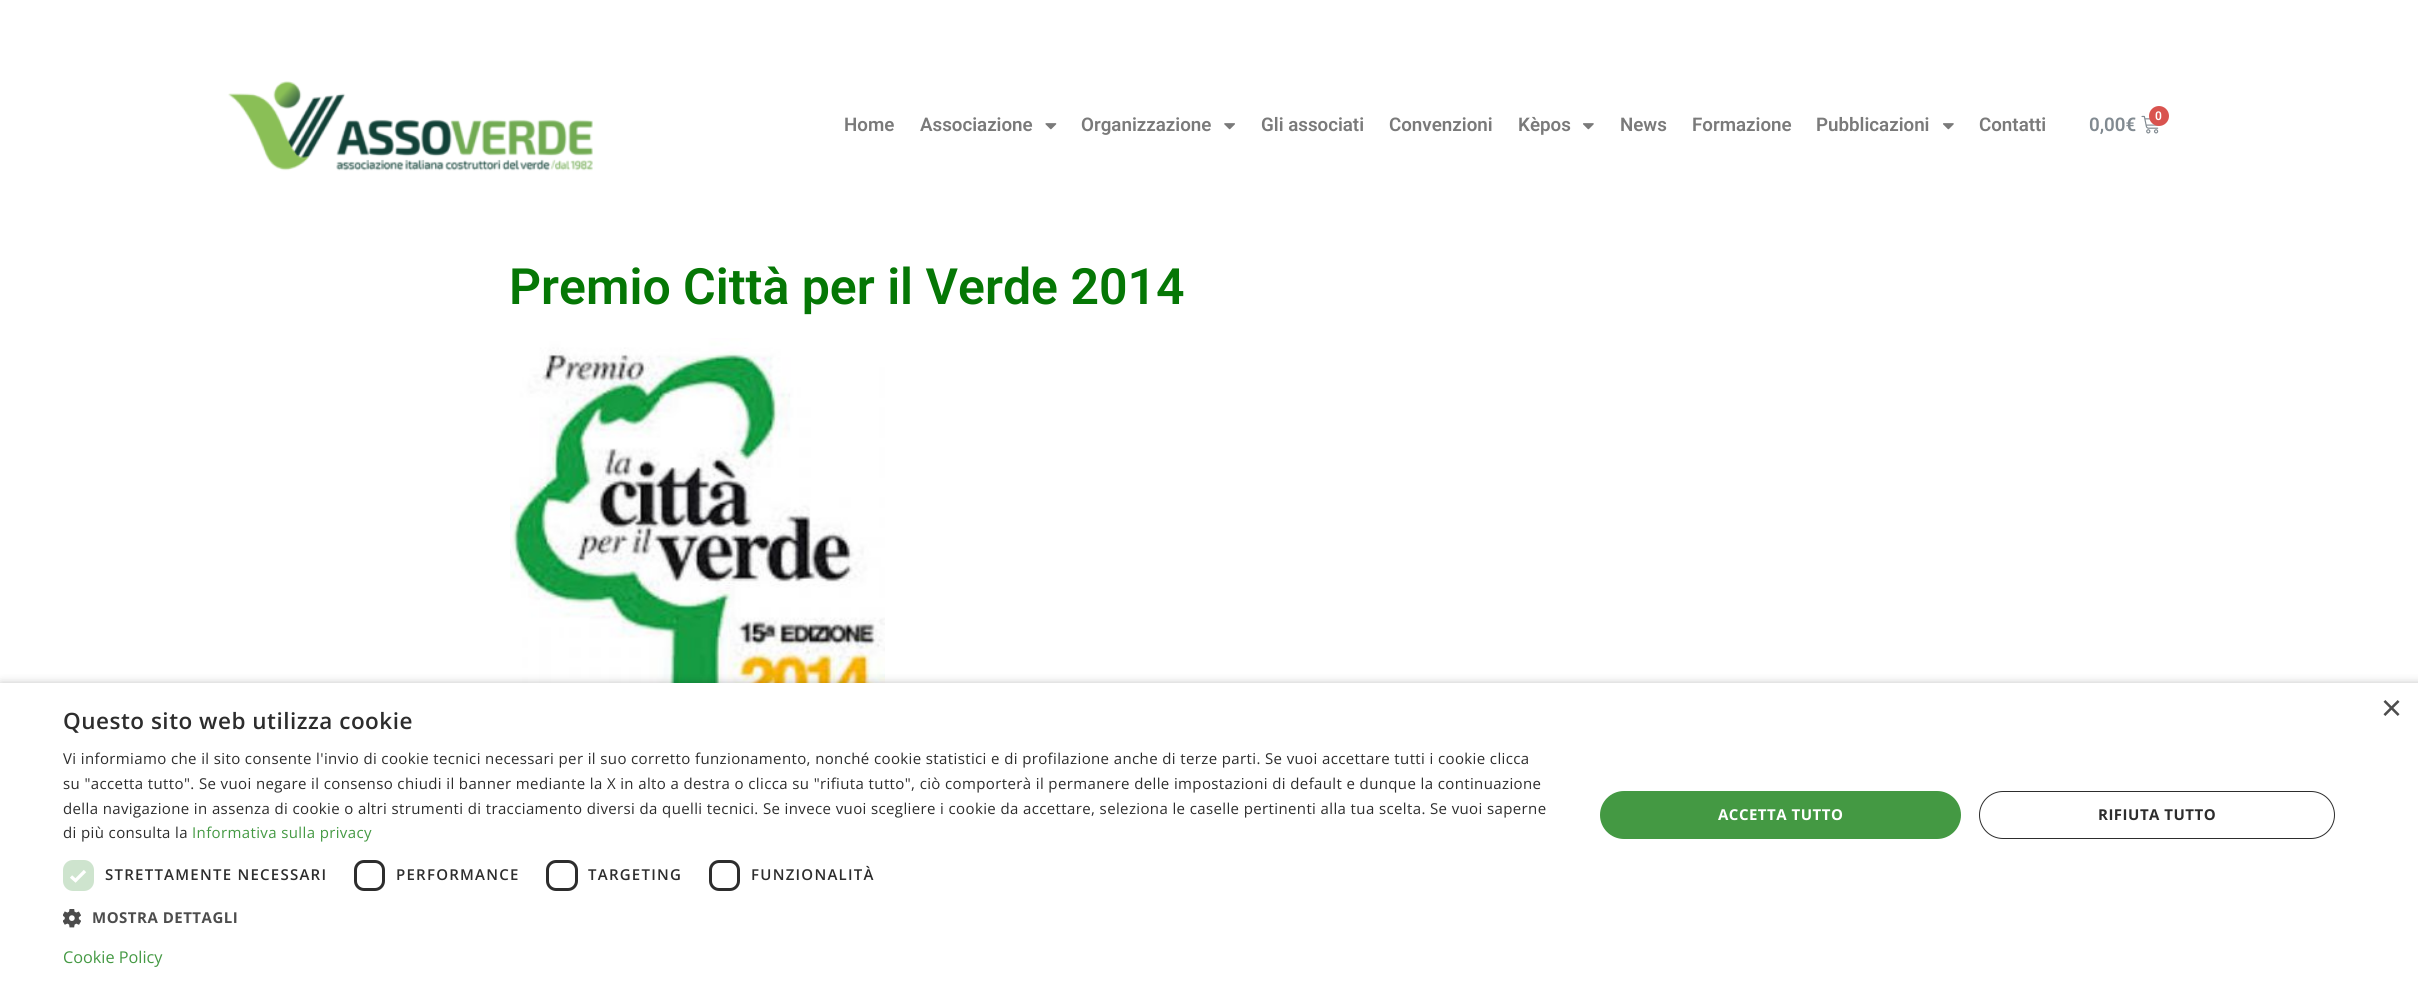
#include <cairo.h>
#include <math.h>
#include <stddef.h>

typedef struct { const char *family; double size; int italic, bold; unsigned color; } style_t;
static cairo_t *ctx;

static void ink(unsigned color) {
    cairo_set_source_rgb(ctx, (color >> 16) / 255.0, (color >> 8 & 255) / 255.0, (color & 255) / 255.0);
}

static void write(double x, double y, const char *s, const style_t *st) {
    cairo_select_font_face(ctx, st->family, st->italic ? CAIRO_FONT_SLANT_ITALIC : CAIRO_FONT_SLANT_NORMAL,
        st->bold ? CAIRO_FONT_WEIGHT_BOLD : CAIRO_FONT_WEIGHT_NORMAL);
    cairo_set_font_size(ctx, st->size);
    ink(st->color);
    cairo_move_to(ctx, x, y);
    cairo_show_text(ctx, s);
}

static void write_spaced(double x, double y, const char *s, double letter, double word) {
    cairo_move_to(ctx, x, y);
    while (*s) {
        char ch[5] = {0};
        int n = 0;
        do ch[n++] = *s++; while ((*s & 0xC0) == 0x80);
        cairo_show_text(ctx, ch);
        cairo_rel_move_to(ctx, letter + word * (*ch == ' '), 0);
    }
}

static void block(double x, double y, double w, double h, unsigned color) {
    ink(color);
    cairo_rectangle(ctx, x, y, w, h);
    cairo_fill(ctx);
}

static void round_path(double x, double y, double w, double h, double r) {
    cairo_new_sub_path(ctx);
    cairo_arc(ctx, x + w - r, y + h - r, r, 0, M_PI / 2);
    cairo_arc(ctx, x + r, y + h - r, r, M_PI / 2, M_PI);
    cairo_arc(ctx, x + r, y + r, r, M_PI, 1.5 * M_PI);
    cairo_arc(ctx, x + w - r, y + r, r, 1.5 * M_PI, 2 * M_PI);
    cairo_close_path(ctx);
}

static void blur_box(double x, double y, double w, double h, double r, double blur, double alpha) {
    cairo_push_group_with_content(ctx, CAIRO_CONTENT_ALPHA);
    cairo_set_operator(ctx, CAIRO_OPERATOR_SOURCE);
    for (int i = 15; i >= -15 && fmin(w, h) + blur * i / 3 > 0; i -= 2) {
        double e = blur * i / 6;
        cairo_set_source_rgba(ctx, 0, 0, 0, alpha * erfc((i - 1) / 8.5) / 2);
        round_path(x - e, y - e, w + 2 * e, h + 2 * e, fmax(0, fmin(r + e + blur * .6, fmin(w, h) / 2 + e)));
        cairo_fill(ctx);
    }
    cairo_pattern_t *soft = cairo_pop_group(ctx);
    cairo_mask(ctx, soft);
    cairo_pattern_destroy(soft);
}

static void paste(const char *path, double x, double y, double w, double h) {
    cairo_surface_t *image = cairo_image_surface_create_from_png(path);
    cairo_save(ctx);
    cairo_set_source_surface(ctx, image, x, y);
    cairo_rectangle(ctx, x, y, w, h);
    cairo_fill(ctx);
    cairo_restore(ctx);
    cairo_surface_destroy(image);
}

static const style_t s1 = {"Roboto SemiBold", 18.75, 0, 0, 0x7a7a7a};
static const style_t s2 = {"Roboto SemiBold", 12, 0, 0, 0xffffff};
static const style_t s3 = {"Roboto SemiBold", 18.75, 0, 0, 0x818a91};
static const style_t s4 = {"Roboto SemiBold", 50, 0, 0, 0x057705};
static const style_t s5 = {"Liberation Sans", 36, 0, 0, 0x4d4d4d};
static const style_t s6 = {"Open Sans", 16.25, 0, 0, 0x449943};

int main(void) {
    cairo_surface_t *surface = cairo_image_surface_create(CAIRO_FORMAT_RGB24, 2418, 1003);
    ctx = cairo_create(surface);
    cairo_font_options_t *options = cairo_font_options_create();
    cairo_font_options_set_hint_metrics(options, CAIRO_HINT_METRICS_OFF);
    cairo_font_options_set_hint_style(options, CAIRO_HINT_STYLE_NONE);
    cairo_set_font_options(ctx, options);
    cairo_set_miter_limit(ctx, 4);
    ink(0xffffff);
    cairo_paint(ctx);
    paste("pic1.png", 228, 81, 365, 90);
    write(844, 131, "Home", &s1);
    write(920, 131, "Associazione", &s1);
    paste("pic2.png", 1045, 123, 12, 7);
    write(1081, 131, "Organizzazione", &s1);
    paste("pic3.png", 1224, 123, 11, 7);
    write(1261, 131, "Gli associati", &s1);
    write(1389, 131, "Convenzioni", &s1);
    write(1518, 131, "Kèpos", &s1);
    paste("pic4.png", 1583, 123, 11, 7);
    write(1620, 131, "News", &s1);
    write(1692, 131, "Formazione", &s1);
    write(1816, 131, "Pubblicazioni", &s1);
    paste("pic4.png", 1943, 123, 11, 7);
    write(1979, 131, "Contatti", &s1);
    paste("pic5.png", 2141, 115, 18, 19);
    ink(0xd9534f);
    cairo_arc(ctx, 2159, 116, 10, 0, 2 * M_PI);
    cairo_fill(ctx);
    write(2155, 120, "0", &s2);
    write(2089, 131, "0,00€", &s3);
    write(509, 304, "Premio Città per il Verde 2014", &s4);
    paste("pic6.png", 510, 338, 375, 345);
    ink(0x000000);
    blur_box(1, 685, 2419, 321, 0, 5, 0.35);
    block(0, 683, 2418, 320, 0xffffff);
    write(2381, 720, "×", &s5);
    cairo_select_font_face(ctx, "Open Sans SemiBold", CAIRO_FONT_SLANT_NORMAL, CAIRO_FONT_WEIGHT_NORMAL);
    cairo_set_font_size(ctx, 22.5);
    ink(0x2d2d2d);
    write_spaced(63, 729, "Questo sito web utilizza cookie", 0.5, 0);
    cairo_select_font_face(ctx, "Open Sans", CAIRO_FONT_SLANT_NORMAL, CAIRO_FONT_WEIGHT_NORMAL);
    cairo_set_font_size(ctx, 15);
    write_spaced(63, 764, "Vi informiamo che il sito consente l'invio di cookie tecnici necessari per il suo corretto funzionamento, nonché cookie statistici e di profilazione anche di terze parti. Se vuoi accettare tutti i cookie clicca", 0.38, 0);
    write_spaced(63, 789, "su \"accetta tutto\". Se vuoi negare il consenso chiudi il banner mediante la X in alto a destra o clicca su \"rifiuta tutto\", ciò comporterà il permanere delle impostazioni di default e dunque la continuazione", 0.38, 0);
    write_spaced(63, 814, "della navigazione in assenza di cookie o altri strumenti di tracciamento diversi da quelli tecnici. Se invece vuoi scegliere i cookie da accettare, seleziona le caselle pertinenti alla tua scelta. Se vuoi saperne", 0.38, 0);
    write_spaced(63, 838, "di più consulta la", 0.38, 0);
    ink(0x449943);
    write_spaced(192, 838, "Informativa sulla privacy", 0.38, 0);
    ink(0xcee4ce);
    round_path(63, 860, 31, 31, 10);
    cairo_fill(ctx);
    cairo_new_path(ctx);
    cairo_move_to(ctx, 71, 876.5);
    cairo_line_to(ctx, 75.5, 880.5);
    cairo_line_to(ctx, 85, 871);
    ink(0xffffff);
    cairo_set_line_width(ctx, 3.3);
    cairo_stroke(ctx);
    cairo_select_font_face(ctx, "Open Sans SemiBold", CAIRO_FONT_SLANT_NORMAL, CAIRO_FONT_WEIGHT_NORMAL);
    ink(0x2d2d2d);
    write_spaced(105, 880, "STRETTAMENTE NECESSARI", 1.25, 0);
    round_path(355.5, 861.5, 28, 28, 8.5);
    cairo_set_line_width(ctx, 3);
    cairo_stroke(ctx);
    write_spaced(396, 880, "PERFORMANCE", 1.25, 0);
    round_path(547.5, 861.5, 29, 28, 8.5);
    cairo_stroke(ctx);
    write_spaced(588, 880, "TARGETING", 1.25, 0);
    round_path(710.5, 861.5, 28, 28, 8.5);
    cairo_stroke(ctx);
    write_spaced(751, 880, "FUNZIONALITÀ", 1.25, 0);
    paste("pic7.png", 63, 909, 18, 19);
    cairo_select_font_face(ctx, "Open Sans", CAIRO_FONT_SLANT_NORMAL, CAIRO_FONT_WEIGHT_BOLD);
    ink(0x4d4d4d);
    write_spaced(92, 923, "MOSTRA DETTAGLI", 0.5, 0);
    ink(0x449943);
    round_path(1600, 791, 361, 48, 24);
    cairo_fill(ctx);
    ink(0xffffff);
    write_spaced(1718, 820, "ACCETTA TUTTO", 0.5, 0);
    round_path(1979.5, 791.5, 355, 47, 23.5);
    ink(0x2d2d2d);
    cairo_set_line_width(ctx, 1);
    cairo_stroke(ctx);
    write_spaced(2098, 820, "RIFIUTA TUTTO", 0.5, 0);
    write(63, 963, "Cookie Policy", &s6);
    cairo_surface_write_to_png(surface, "screenshot.png");
    cairo_font_options_destroy(options);
    cairo_destroy(ctx);
    cairo_surface_destroy(surface);
    return 0;
}
